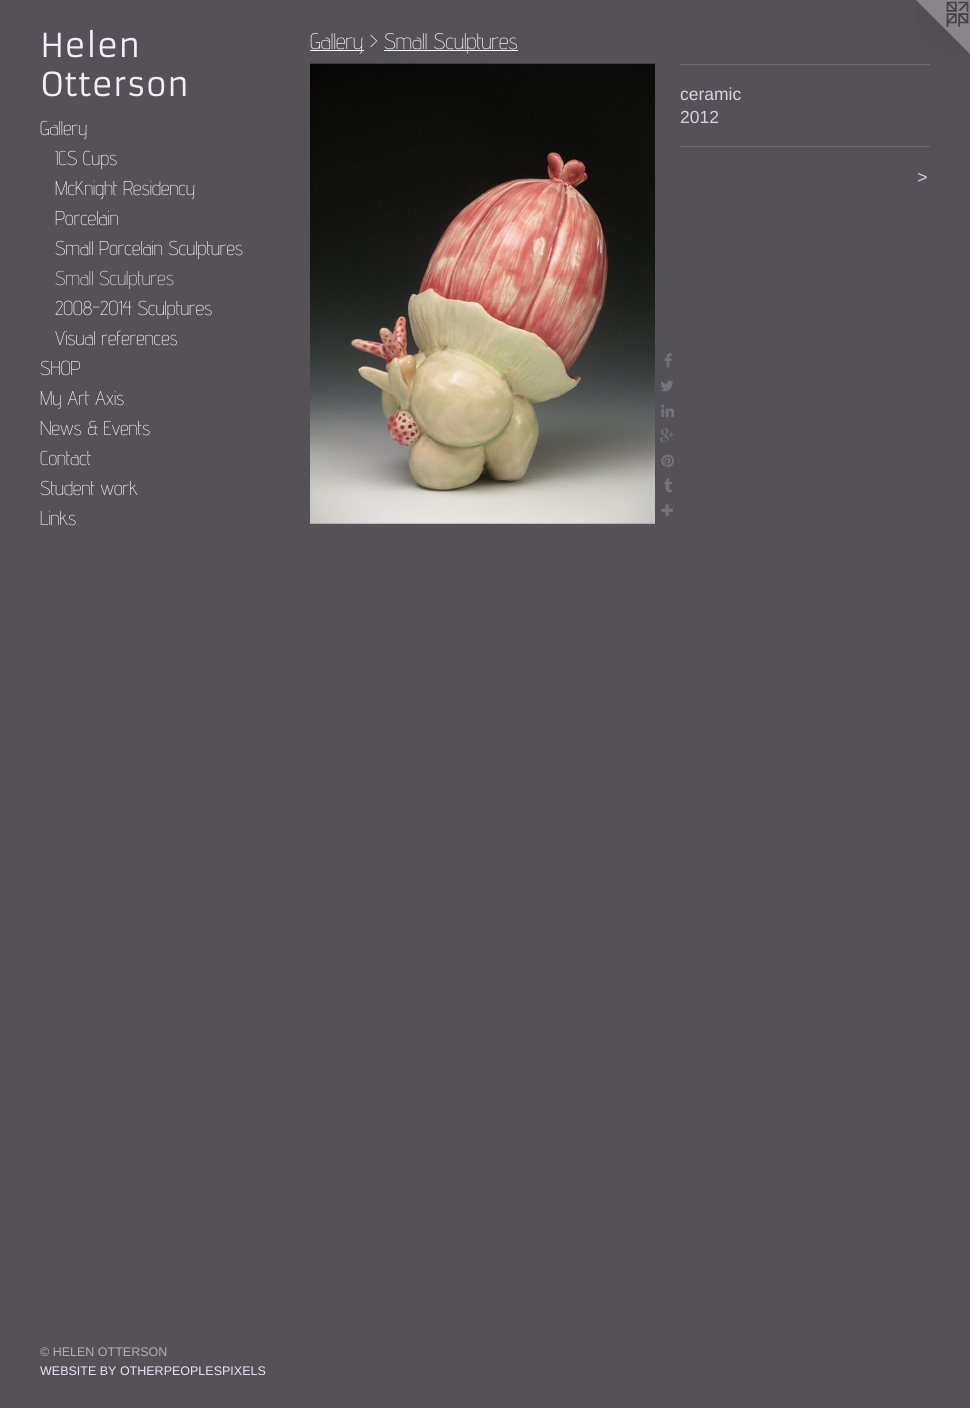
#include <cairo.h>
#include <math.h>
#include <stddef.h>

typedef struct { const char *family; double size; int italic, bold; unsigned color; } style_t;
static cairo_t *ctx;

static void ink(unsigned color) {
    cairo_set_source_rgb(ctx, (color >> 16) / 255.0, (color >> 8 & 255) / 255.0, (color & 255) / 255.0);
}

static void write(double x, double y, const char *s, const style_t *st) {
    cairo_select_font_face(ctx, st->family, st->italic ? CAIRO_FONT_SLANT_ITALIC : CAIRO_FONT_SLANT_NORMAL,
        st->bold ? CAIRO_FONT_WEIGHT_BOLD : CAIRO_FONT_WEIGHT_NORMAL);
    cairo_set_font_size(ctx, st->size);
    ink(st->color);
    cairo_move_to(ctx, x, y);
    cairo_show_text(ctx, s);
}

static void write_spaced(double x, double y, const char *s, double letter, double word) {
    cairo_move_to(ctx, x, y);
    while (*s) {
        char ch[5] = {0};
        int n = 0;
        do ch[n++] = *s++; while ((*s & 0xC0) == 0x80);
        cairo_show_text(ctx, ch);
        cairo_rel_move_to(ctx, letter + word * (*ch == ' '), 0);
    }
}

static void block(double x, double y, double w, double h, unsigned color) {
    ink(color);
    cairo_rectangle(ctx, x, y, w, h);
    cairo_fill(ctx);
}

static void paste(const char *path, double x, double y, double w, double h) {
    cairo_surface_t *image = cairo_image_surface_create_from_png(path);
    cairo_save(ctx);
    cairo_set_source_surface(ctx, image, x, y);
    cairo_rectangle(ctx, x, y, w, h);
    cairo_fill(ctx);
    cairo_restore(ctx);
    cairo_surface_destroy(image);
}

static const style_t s1 = {"Armata", 32.5, 0, 0, 0xf2eef6};
static const style_t s2 = {"Advent Pro ExtraLight", 20, 0, 0, 0xf5f5f4};
static const style_t s3 = {"Advent Pro ExtraLight", 20, 0, 0, 0xddddd9};
static const style_t s4 = {"Liberation Sans", 12.5, 0, 0, 0xb1b2ae};
static const style_t s5 = {"Liberation Sans", 12.5, 0, 0, 0xece0f5};
static const style_t s6 = {"Advent Pro ExtraLight", 22.5, 0, 0, 0xf5f5f4};
static const style_t s7 = {"Liberation Sans", 17.5, 0, 0, 0xd8d2df};

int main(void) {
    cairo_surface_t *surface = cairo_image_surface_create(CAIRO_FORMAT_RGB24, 970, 1408);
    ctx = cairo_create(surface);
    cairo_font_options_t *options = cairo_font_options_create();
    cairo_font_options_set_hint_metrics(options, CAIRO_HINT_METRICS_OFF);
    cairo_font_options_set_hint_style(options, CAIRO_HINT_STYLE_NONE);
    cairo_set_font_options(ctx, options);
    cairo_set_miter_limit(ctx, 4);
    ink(0x545257);
    cairo_paint(ctx);
    write(40, 57, "Helen", &s1);
    write(40, 96, "Otterson", &s1);
    write(40, 135, "Gallery", &s2);
    write(55, 165, "ICS Cups", &s2);
    write(55, 195, "McKnight Residency", &s2);
    write(55, 225, "Porcelain", &s2);
    write(55, 255, "Small Porcelain Sculptures", &s2);
    write(55, 285, "Small Sculptures", &s3);
    write(55, 315, "2008-2014 Sculptures", &s2);
    write(55, 345, "Visual references", &s2);
    write(40, 375, "SHOP", &s2);
    write(40, 405, "My Art Axis", &s2);
    write(40, 435, "News & Events", &s2);
    write(40, 465, "Contact", &s2);
    write(40, 495, "Student work", &s2);
    write(40, 525, "Links", &s2);
    write(40, 1356, "© HELEN OTTERSON", &s4);
    write(40, 1375, "WEBSITE BY OTHERPEOPLESPIXELS", &s5);
    paste("pic1.png", 916, 0, 54, 54);
    block(310, 50, 54, 1, 0xf5f5f4);
    write(310, 49, "Gallery >", &s6);
    block(384, 50, 134, 1, 0xf5f5f4);
    write(384, 49, "Small Sculptures", &s6);
    paste("pic2.png", 310, 63, 345, 461);
    paste("pic3.png", 664, 353, 8, 15);
    paste("pic4.png", 661, 380, 12, 12);
    paste("pic5.png", 661, 404, 13, 13);
    paste("pic6.png", 660, 428, 14, 15);
    paste("pic7.png", 661, 454, 13, 14);
    paste("pic8.png", 664, 478, 9, 15);
    paste("pic9.png", 661, 504, 12, 13);
    block(680, 64, 250, 1, 0x6e6c72);
    write(680, 100, "ceramic", &s7);
    write(680, 123, "2012", &s7);
    block(680, 146, 250, 1, 0x6e6c72);
    cairo_select_font_face(ctx, "Liberation Sans", CAIRO_FONT_SLANT_ITALIC, CAIRO_FONT_WEIGHT_NORMAL);
    ink(0xd8d2df);
    write_spaced(917, 183, ">", 1, 0);
    cairo_surface_write_to_png(surface, "screenshot.png");
    cairo_font_options_destroy(options);
    cairo_destroy(ctx);
    cairo_surface_destroy(surface);
    return 0;
}
